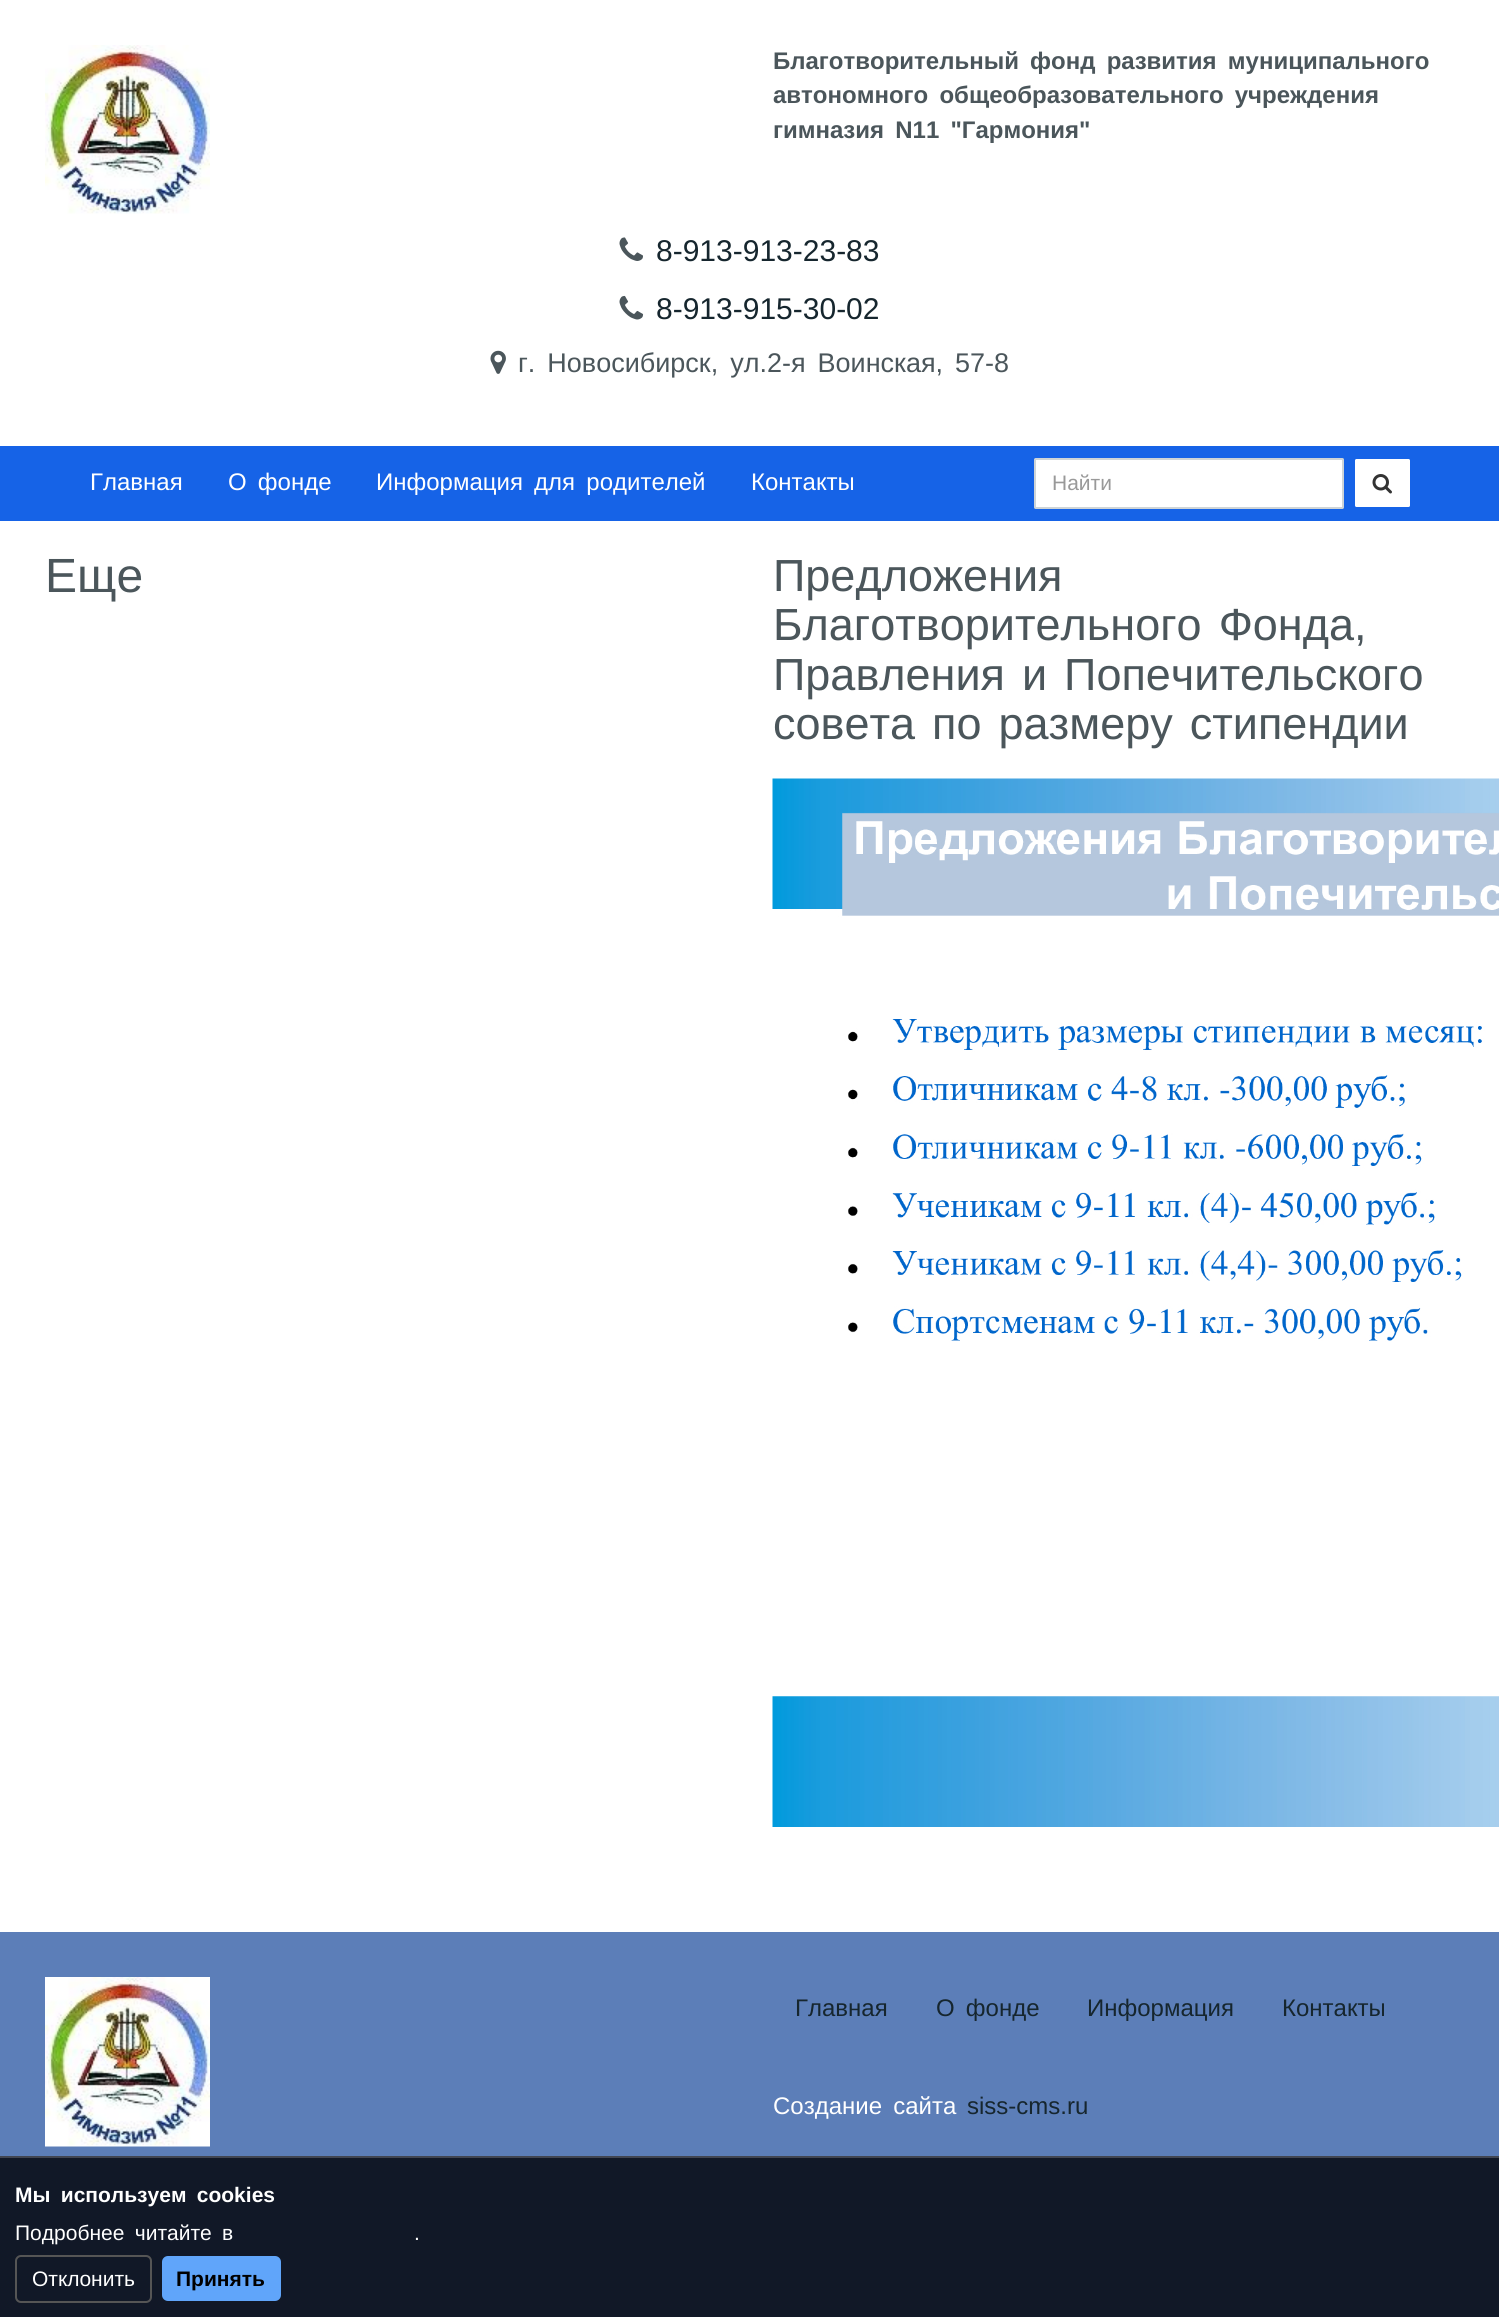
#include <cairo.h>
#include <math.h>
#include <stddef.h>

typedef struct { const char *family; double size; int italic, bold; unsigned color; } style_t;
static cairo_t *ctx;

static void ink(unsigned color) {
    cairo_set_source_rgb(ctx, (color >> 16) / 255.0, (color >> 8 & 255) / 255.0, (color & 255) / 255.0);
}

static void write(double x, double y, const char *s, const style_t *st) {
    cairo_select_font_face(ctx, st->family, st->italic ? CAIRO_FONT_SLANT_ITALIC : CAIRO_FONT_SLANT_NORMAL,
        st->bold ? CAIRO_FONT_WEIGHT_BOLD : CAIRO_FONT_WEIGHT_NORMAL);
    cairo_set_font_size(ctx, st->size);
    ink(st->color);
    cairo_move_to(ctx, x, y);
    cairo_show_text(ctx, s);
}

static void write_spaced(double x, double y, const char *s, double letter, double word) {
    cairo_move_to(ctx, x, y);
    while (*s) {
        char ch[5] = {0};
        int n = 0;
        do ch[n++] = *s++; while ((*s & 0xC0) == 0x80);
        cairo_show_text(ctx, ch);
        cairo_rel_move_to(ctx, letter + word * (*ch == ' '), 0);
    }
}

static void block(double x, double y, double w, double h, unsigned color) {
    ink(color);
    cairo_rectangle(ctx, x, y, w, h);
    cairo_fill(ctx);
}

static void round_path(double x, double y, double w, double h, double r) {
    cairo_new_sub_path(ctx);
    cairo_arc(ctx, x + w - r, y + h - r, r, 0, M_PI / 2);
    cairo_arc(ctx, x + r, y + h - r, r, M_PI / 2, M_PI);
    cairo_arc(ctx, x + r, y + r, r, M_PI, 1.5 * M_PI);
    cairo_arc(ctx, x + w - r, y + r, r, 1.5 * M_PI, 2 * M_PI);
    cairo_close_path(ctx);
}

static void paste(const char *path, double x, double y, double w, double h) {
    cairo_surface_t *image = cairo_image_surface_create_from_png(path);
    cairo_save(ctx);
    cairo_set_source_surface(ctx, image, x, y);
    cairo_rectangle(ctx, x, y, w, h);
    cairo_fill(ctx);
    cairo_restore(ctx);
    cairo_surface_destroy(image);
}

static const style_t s1 = {"Liberation Sans", 30, 0, 0, 0x16262e};
static const style_t s2 = {"Liberation Sans", 24, 0, 0, 0xffffff};
static const style_t s3 = {"Liberation Sans", 21, 0, 0, 0x999999};
static const style_t s4 = {"Liberation Sans", 48, 0, 0, 0x4b565b};
static const style_t s5 = {"Liberation Sans", 45, 0, 0, 0x4b565b};
static const style_t s6 = {"Liberation Sans", 24, 0, 0, 0x16262e};
static const style_t s7 = {"Liberation Sans", 21, 0, 0, 0xffffff};
static const style_t s8 = {"Liberation Sans", 21, 0, 1, 0x000000};

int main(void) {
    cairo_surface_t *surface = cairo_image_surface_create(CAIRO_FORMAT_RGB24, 1499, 2317);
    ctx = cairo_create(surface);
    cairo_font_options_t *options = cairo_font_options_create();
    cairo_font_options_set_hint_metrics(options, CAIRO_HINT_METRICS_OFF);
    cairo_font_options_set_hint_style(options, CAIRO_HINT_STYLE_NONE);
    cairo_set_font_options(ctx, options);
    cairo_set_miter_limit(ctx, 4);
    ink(0xffffff);
    cairo_paint(ctx);
    paste("pic1.png", 45, 45, 165, 169);
    cairo_select_font_face(ctx, "Liberation Sans", CAIRO_FONT_SLANT_NORMAL, CAIRO_FONT_WEIGHT_BOLD);
    cairo_set_font_size(ctx, 24);
    ink(0x4b565b);
    write_spaced(773, 69, "Благотворительный фонд развития муниципального", 0, 4.5);
    write_spaced(773, 103, "автономного общеобразовательного учреждения", 0, 4.5);
    write_spaced(773, 138, "гимназия N11 \"Гармония\"", 0, 4.5);
    paste("pic2.png", 619, 237, 24, 24);
    write(656, 261, "8-913-913-23-83", &s1);
    paste("pic3.png", 619, 295, 25, 25);
    write(656, 319, "8-913-915-30-02", &s1);
    paste("pic4.png", 490, 350, 16, 24);
    cairo_set_font_size(ctx, 27);
    ink(0x4b565b);
    write_spaced(518, 372, "г. Новосибирск, ул.2-я Воинская, 57-8", 0, 4.5);
    block(0, 446, 1499, 75, 0x1663e7);
    write(90, 490, "Главная", &s2);
    write_spaced(228, 490, "О фонде", 0, 4.5);
    write_spaced(376, 490, "Информация для родителей", 0, 4.5);
    write(751, 490, "Контакты", &s2);
    round_path(1035, 459, 308, 49, 0.5);
    cairo_fill_preserve(ctx);
    ink(0xced4d7);
    cairo_stroke(ctx);
    write(1052, 490, "Найти", &s3);
    ink(0xffffff);
    round_path(1355, 459, 55, 48, 1.5);
    cairo_fill(ctx);
    paste("pic5.png", 1372, 474, 20, 20);
    write(45, 592, "Еще", &s4);
    write(773, 591, "Предложения", &s5);
    write_spaced(773, 640, "Благотворительного Фонда,", 0, 4.5);
    write_spaced(773, 690, "Правления и Попечительского", 0, 4.5);
    write_spaced(773, 739, "совета по размеру стипендии", 0, 4.5);
    paste("pic6.png", 772, 778, 727, 1049);
    block(0, 1932, 1499, 224, 0x5c7eb8);
    paste("pic7.png", 45, 1977, 165, 170);
    write(795, 2016, "Главная", &s6);
    write_spaced(936, 2016, "О фонде", 0, 4.5);
    write(1087, 2016, "Информация", &s6);
    write(1282, 2016, "Контакты", &s6);
    ink(0xffffff);
    write_spaced(773, 2114, "Создание сайта", 0, 4.5);
    write(967, 2114, "siss-cms.ru", &s6);
    block(0, 2158, 1499, 159, 0x111827);
    block(0, 2156, 1499, 2, 0x414652);
    cairo_select_font_face(ctx, "Liberation Sans", CAIRO_FONT_SLANT_NORMAL, CAIRO_FONT_WEIGHT_BOLD);
    cairo_set_font_size(ctx, 21);
    ink(0xffffff);
    write_spaced(15, 2202, "Мы используем cookies", 0, 4.5);
    cairo_select_font_face(ctx, "Liberation Sans", CAIRO_FONT_SLANT_NORMAL, CAIRO_FONT_WEIGHT_NORMAL);
    write_spaced(15, 2240, "Подробнее читайте в", 0, 4.5);
    write(414, 2240, ".", &s7);
    round_path(16, 2256, 135, 46, 5);
    ink(0x555555);
    cairo_stroke(ctx);
    write(32, 2286, "Отклонить", &s7);
    ink(0x60a5fa);
    round_path(162, 2256, 119, 45, 6);
    cairo_fill(ctx);
    write(176, 2286, "Принять", &s8);
    cairo_surface_write_to_png(surface, "screenshot.png");
    cairo_font_options_destroy(options);
    cairo_destroy(ctx);
    cairo_surface_destroy(surface);
    return 0;
}
